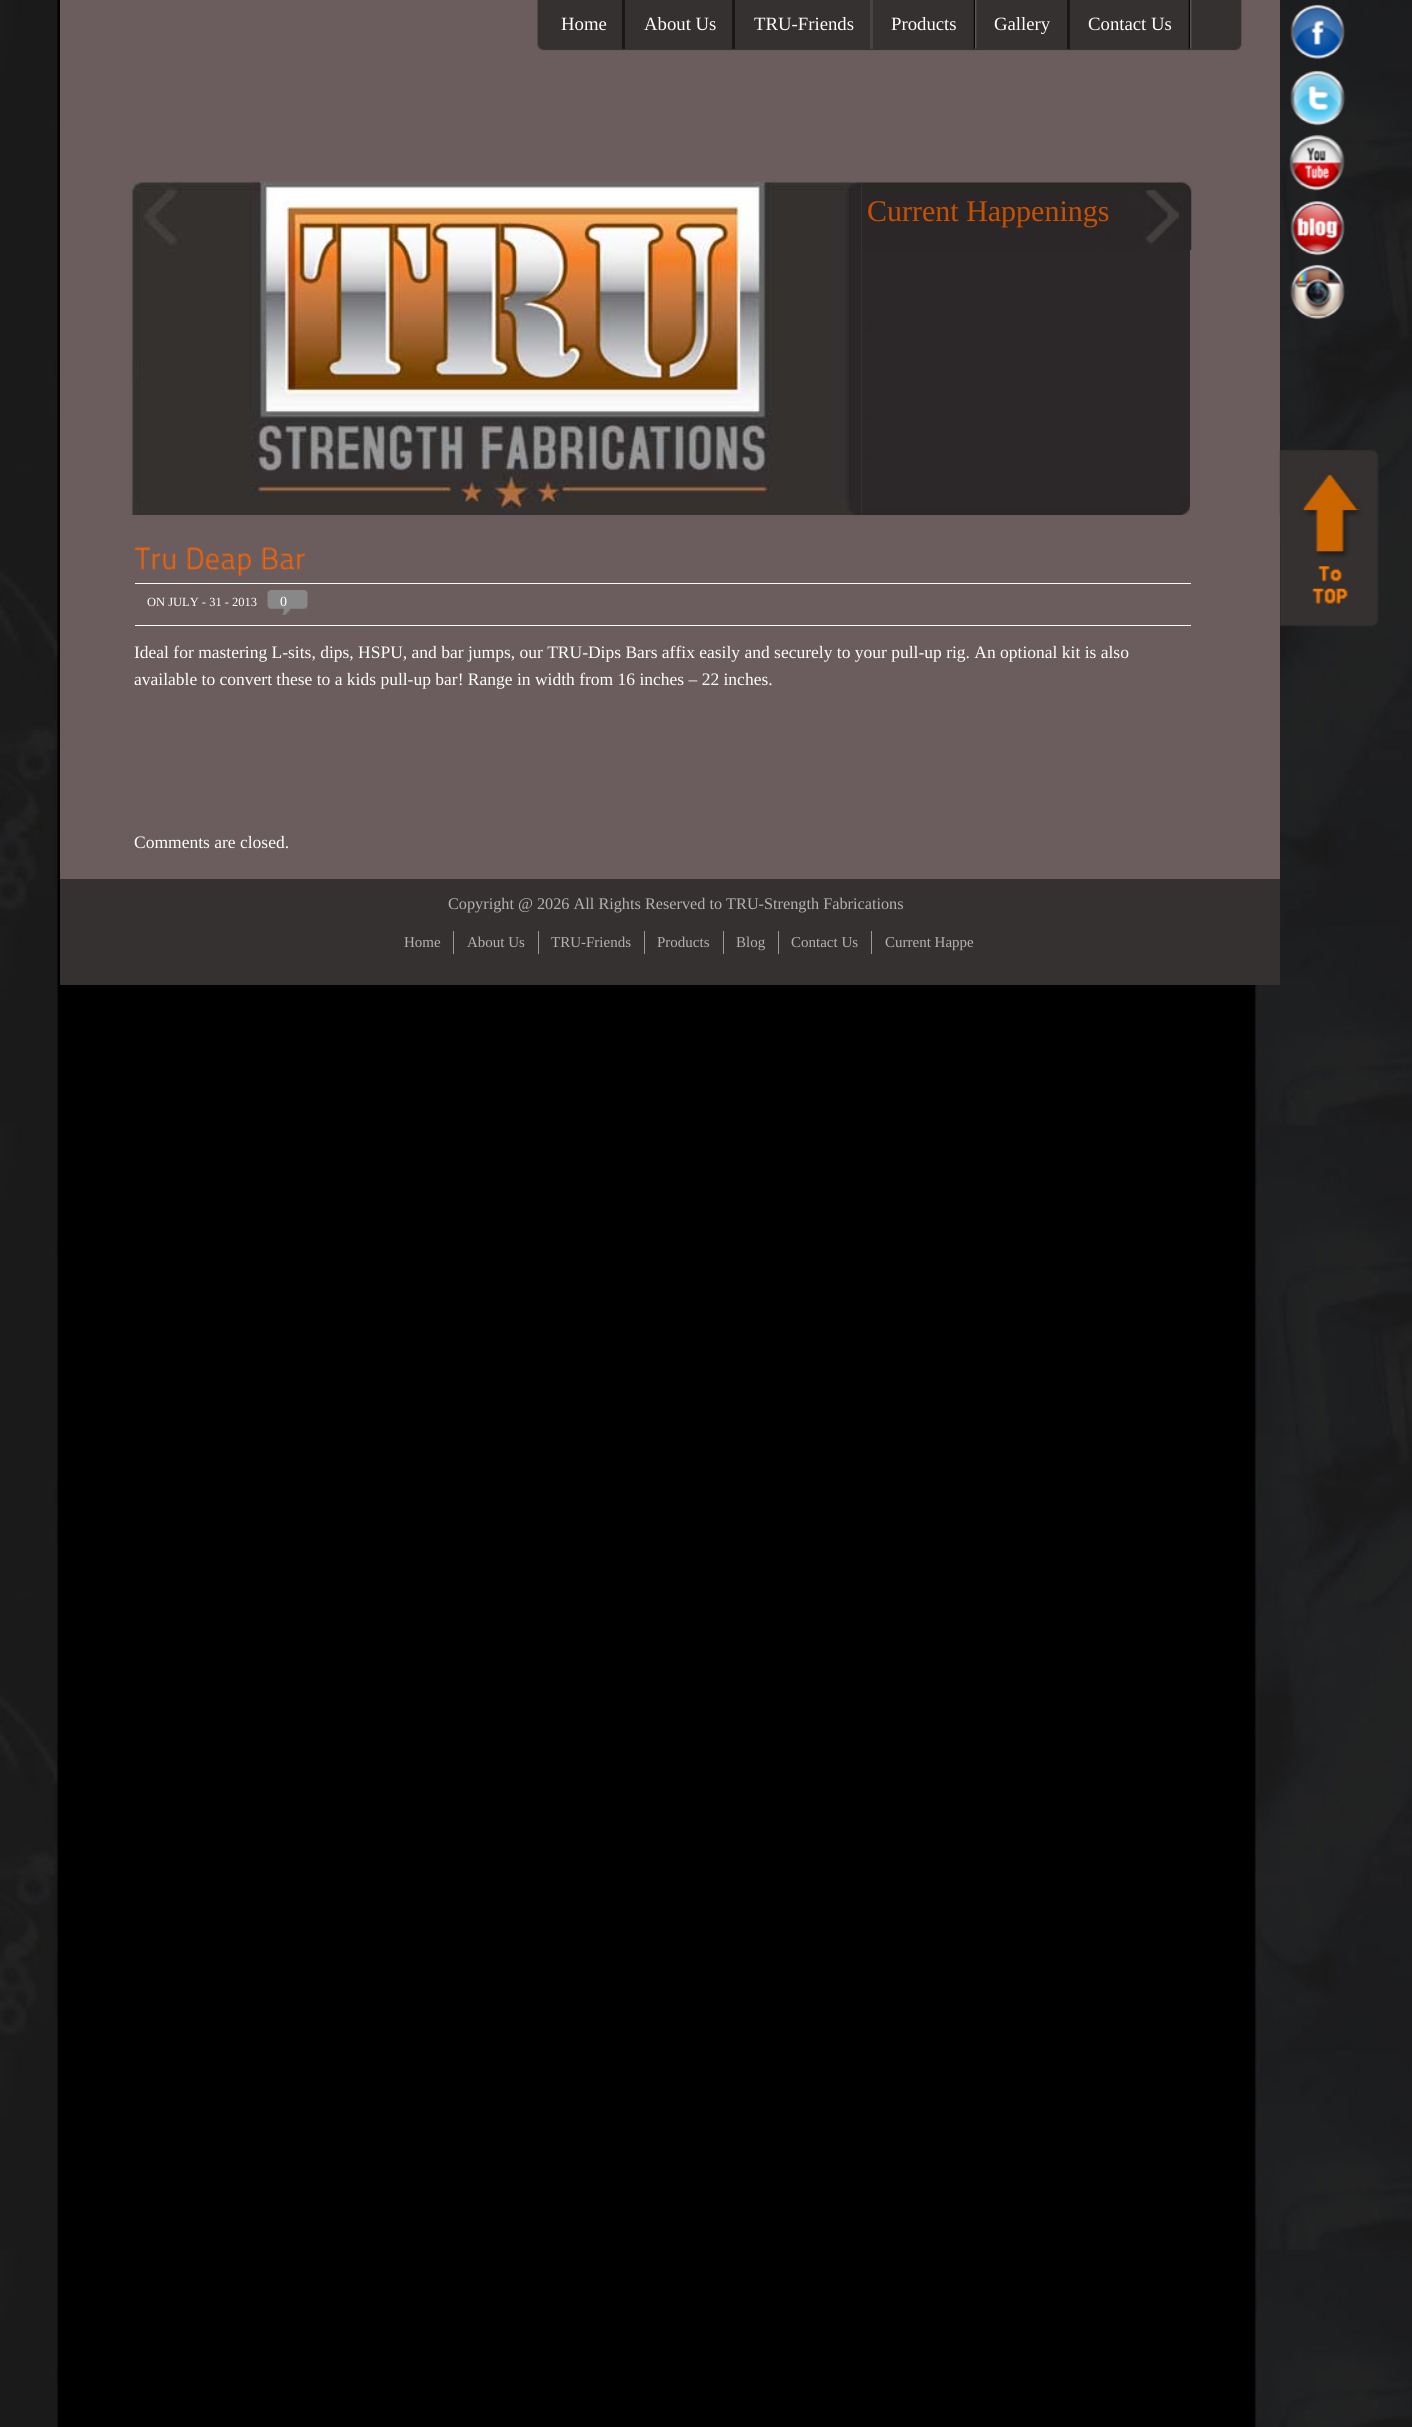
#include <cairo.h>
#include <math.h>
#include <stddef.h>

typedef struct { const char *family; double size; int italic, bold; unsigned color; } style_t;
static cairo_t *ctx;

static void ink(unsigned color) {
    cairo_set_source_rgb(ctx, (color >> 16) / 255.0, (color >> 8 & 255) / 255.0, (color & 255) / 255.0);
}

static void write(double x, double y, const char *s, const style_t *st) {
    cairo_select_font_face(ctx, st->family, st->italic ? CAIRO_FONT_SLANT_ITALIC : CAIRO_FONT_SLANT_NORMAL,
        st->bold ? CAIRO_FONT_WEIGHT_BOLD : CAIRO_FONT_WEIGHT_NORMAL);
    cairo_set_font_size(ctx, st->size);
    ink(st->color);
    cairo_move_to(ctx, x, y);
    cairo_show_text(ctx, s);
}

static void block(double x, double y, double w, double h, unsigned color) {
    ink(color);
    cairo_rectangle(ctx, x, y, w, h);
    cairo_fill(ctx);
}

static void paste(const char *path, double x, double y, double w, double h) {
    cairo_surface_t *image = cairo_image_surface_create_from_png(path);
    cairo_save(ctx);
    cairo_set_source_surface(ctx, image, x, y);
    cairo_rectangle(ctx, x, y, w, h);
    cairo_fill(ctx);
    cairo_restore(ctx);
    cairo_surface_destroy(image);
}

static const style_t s1 = {"Liberation Serif", 18.75, 0, 0, 0xffffff};
static const style_t s2 = {"Liberation Serif", 30, 0, 0, 0xc85101};
static const style_t s3 = {"Liberation Serif", 12.5, 0, 0, 0xffffff};
static const style_t s4 = {"Liberation Serif", 14, 0, 0, 0xffffff};
static const style_t s5 = {"Liberation Serif", 17.5, 0, 0, 0xffffff};
static const style_t s6 = {"Liberation Serif", 16.25, 0, 0, 0xb3b2b2};
static const style_t s7 = {"Liberation Serif", 15, 0, 0, 0xb3b2b2};

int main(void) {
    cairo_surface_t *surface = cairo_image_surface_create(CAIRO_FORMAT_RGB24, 1412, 2427);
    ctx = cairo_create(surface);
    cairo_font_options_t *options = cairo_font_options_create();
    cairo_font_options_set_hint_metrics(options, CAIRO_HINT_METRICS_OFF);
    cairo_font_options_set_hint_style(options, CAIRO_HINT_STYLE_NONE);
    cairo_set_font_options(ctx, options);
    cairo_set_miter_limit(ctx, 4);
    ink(0xffffff);
    cairo_paint(ctx);
    paste("pic1.png", 0, 0, 1412, 2427);
    block(60, 0, 1220, 515, 0x6b5d5d);
    paste("pic2.png", 537, 0, 705, 51);
    block(622, 0, 3, 49, 0x191819);
    write(561, 30, "Home", &s1);
    block(732, 0, 3, 49, 0x191819);
    write(644, 30, "About Us", &s1);
    block(870, 0, 3, 49, 0x464444);
    write(754, 30, "TRU-Friends", &s1);
    paste("pic3.png", 973, 0, 4, 49);
    write(891, 30, "Products", &s1);
    block(1067, 0, 3, 49, 0x191819);
    write(994, 30, "Gallery", &s1);
    paste("pic3.png", 1188, 0, 4, 49);
    write(1088, 30, "Contact Us", &s1);
    paste("pic4.png", 131, 181, 731, 334);
    paste("pic5.png", 861, 181, 331, 69);
    write(867, 221, "Current Happenings", &s2);
    paste("pic6.png", 861, 250, 329, 265);
    paste("pic16.png", 1279, 450, 100, 177);
    block(60, 515, 1220, 364, 0x6b5d5d);
    paste("pic7.png", 135, 547, 41, 24);
    paste("pic8.png", 187, 547, 65, 30);
    paste("pic9.png", 262, 547, 44, 24);
    block(135, 583, 1056, 1, 0xffffff);
    block(135, 625, 1056, 1, 0xffffff);
    write(147, 606, "ON JULY - 31 - 2013", &s3);
    paste("pic10.png", 267, 590, 41, 25);
    write(280, 606, "0", &s4);
    write(134, 658, "Ideal for mastering L-sits, dips, HSPU, and bar jumps, our TRU-Dips Bars affix easily and securely to your pull-up rig. An optional kit is also", &s5);
    write(134, 685, "available to convert these to a kids pull-up bar! Range in width from 16 inches – 22 inches.", &s5);
    write(134, 848, "Comments are closed.", &s5);
    block(60, 879, 1220, 106, 0x353130);
    write(448, 909, "Copyright @ 2026 All Rights Reserved to TRU-Strength Fabrications", &s6);
    block(453, 931, 1, 23, 0x999999);
    write(404, 947, "Home", &s7);
    block(538, 931, 1, 23, 0x999999);
    write(467, 947, "About Us", &s7);
    block(644, 931, 1, 23, 0x999999);
    write(551, 947, "TRU-Friends", &s7);
    block(723, 931, 1, 23, 0x999999);
    write(657, 947, "Products", &s7);
    block(778, 931, 1, 23, 0x999999);
    write(736, 947, "Blog", &s7);
    block(871, 931, 1, 23, 0x999999);
    write(791, 947, "Contact Us", &s7);
    write(885, 947, "Current Happe", &s7);
    paste("pic11.png", 1290, 4, 55, 55);
    paste("pic12.png", 1290, 70, 56, 56);
    paste("pic13.png", 1289, 134, 56, 57);
    paste("pic14.png", 1290, 201, 55, 55);
    paste("pic15.png", 1290, 264, 55, 55);
    cairo_surface_write_to_png(surface, "screenshot.png");
    cairo_font_options_destroy(options);
    cairo_destroy(ctx);
    cairo_surface_destroy(surface);
    return 0;
}
